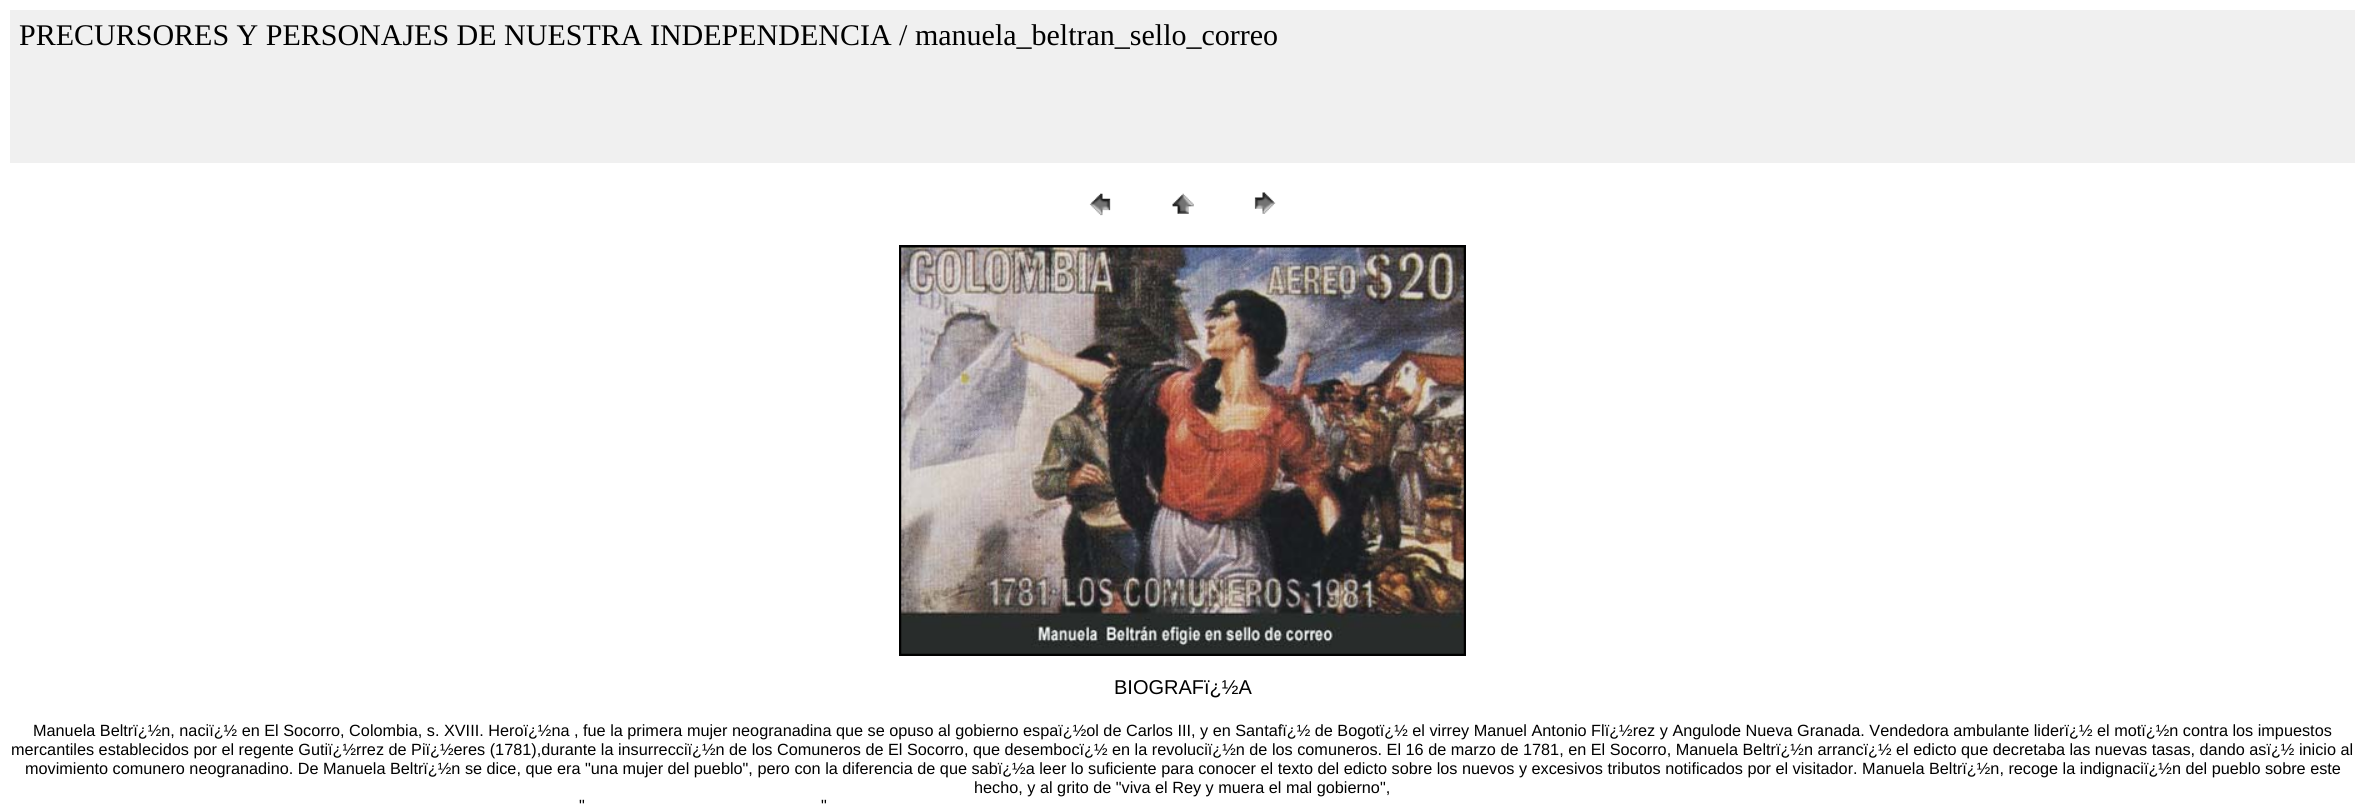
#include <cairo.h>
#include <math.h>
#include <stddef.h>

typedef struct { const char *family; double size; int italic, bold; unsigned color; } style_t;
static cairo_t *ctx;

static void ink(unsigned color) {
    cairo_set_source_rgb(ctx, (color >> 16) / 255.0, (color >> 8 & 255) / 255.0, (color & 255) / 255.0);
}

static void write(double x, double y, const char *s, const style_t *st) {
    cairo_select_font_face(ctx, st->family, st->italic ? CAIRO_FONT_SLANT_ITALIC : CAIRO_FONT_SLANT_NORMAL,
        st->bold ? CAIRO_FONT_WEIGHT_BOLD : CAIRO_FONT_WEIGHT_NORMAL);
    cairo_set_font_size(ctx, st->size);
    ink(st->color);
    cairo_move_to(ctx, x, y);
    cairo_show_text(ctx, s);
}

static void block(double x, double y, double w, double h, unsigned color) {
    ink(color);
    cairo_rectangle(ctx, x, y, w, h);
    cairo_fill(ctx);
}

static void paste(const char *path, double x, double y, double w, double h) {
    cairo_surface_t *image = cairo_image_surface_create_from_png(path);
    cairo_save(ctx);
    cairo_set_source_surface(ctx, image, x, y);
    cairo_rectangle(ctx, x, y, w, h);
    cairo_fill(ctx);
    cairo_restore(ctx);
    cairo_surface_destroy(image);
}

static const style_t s1 = {"Liberation Serif", 30, 0, 0, 0x000000};
static const style_t s2 = {"Liberation Sans", 20, 0, 0, 0x000000};
static const style_t s3 = {"Liberation Sans", 16.25, 0, 0, 0x000000};

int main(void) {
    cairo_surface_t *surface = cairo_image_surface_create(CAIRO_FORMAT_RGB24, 2364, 806);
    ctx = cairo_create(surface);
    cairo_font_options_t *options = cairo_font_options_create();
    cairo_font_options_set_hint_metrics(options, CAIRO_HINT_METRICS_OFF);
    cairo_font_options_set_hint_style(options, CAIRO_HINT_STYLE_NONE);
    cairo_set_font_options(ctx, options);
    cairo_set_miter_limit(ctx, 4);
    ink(0xffffff);
    cairo_paint(ctx);
    block(10, 10, 2345, 153, 0xf0f0f0);
    write(19, 45, "PRECURSORES Y PERSONAJES DE NUESTRA INDEPENDENCIA / manuela_beltran_sello_correo", &s1);
    paste("pic1.png", 1089, 193, 22, 23);
    paste("pic2.png", 1172, 193, 22, 21);
    paste("pic3.png", 1254, 192, 22, 22);
    cairo_rectangle(ctx, 900.5, 246.5, 564, 408);
    cairo_set_line_width(ctx, 3);
    cairo_stroke(ctx);
    paste("pic4.png", 901, 247, 563, 407);
    write(1114, 694, "BIOGRAFï¿½A", &s2);
    write(33, 736, "Manuela Beltrï¿½n, naciï¿½ en El Socorro, Colombia, s. XVIII. Heroï¿½na , fue la primera mujer neogranadina que se opuso al gobierno espaï¿½ol de Carlos III, y en Santafï¿½ de Bogotï¿½ el virrey Manuel Antonio Flï¿½rez y Angulode Nueva Granada. Vendedora ambulante liderï¿½ el motï¿½n contra los impuestos", &s3);
    write(11, 755, "mercantiles establecidos por el regente Gutiï¿½rrez de Piï¿½eres (1781),durante la insurrecciï¿½n de los Comuneros de El Socorro, que desembocï¿½ en la revoluciï¿½n de los comuneros. El 16 de marzo de 1781, en El Socorro, Manuela Beltrï¿½n arrancï¿½ el edicto que decretaba las nuevas tasas, dando asï¿½ inicio al", &s3);
    write(25, 774, "movimiento comunero neogranadino. De Manuela Beltrï¿½n se dice, que era \"una mujer del pueblo\", pero con la diferencia de que sabï¿½a leer lo suficiente para conocer el texto del edicto sobre los nuevos y excesivos tributos notificados por el visitador. Manuela Beltrï¿½n, recoge la indignaciï¿½n del pueblo sobre este", &s3);
    write(974, 793, "hecho, y al grito de \"viva el Rey y muera el mal gobierno\",", &s3);
    write(579, 811, "\"", &s3);
    write(821, 811, "\"", &s3);
    cairo_surface_write_to_png(surface, "screenshot.png");
    cairo_font_options_destroy(options);
    cairo_destroy(ctx);
    cairo_surface_destroy(surface);
    return 0;
}
